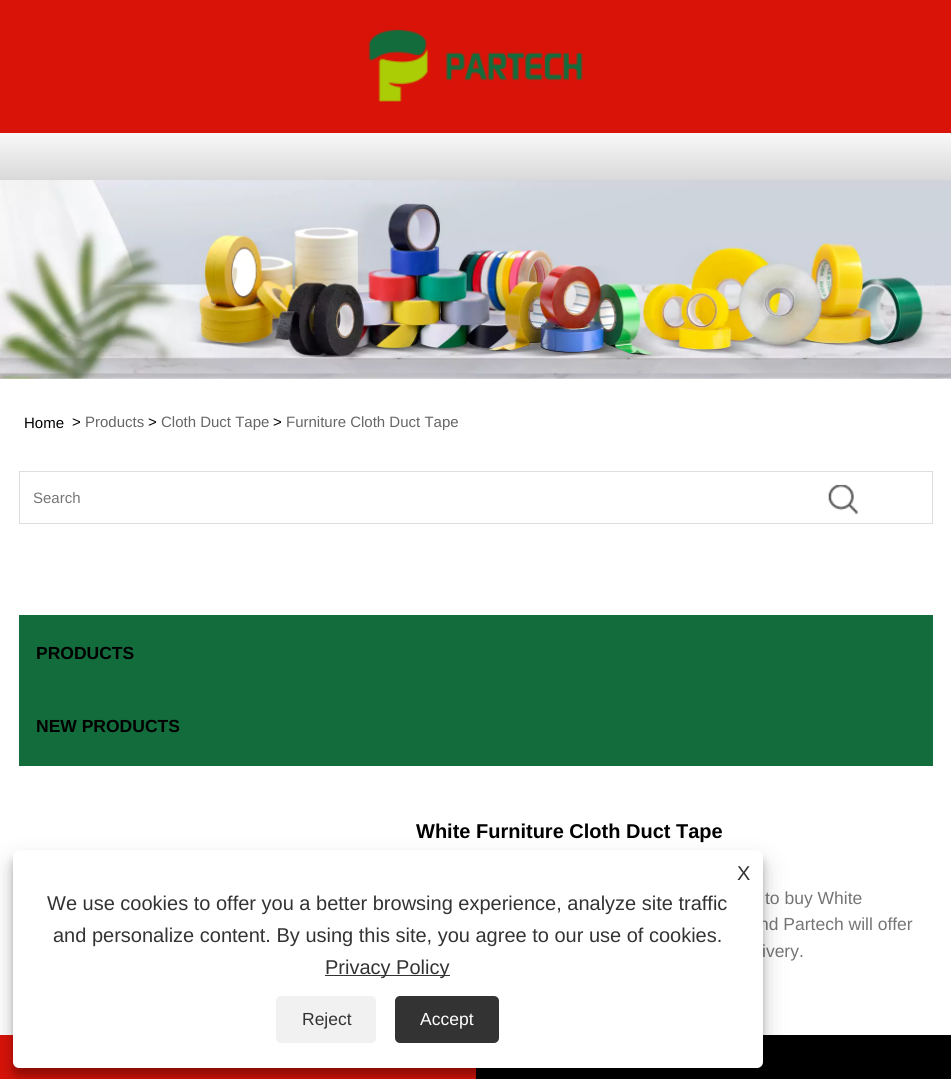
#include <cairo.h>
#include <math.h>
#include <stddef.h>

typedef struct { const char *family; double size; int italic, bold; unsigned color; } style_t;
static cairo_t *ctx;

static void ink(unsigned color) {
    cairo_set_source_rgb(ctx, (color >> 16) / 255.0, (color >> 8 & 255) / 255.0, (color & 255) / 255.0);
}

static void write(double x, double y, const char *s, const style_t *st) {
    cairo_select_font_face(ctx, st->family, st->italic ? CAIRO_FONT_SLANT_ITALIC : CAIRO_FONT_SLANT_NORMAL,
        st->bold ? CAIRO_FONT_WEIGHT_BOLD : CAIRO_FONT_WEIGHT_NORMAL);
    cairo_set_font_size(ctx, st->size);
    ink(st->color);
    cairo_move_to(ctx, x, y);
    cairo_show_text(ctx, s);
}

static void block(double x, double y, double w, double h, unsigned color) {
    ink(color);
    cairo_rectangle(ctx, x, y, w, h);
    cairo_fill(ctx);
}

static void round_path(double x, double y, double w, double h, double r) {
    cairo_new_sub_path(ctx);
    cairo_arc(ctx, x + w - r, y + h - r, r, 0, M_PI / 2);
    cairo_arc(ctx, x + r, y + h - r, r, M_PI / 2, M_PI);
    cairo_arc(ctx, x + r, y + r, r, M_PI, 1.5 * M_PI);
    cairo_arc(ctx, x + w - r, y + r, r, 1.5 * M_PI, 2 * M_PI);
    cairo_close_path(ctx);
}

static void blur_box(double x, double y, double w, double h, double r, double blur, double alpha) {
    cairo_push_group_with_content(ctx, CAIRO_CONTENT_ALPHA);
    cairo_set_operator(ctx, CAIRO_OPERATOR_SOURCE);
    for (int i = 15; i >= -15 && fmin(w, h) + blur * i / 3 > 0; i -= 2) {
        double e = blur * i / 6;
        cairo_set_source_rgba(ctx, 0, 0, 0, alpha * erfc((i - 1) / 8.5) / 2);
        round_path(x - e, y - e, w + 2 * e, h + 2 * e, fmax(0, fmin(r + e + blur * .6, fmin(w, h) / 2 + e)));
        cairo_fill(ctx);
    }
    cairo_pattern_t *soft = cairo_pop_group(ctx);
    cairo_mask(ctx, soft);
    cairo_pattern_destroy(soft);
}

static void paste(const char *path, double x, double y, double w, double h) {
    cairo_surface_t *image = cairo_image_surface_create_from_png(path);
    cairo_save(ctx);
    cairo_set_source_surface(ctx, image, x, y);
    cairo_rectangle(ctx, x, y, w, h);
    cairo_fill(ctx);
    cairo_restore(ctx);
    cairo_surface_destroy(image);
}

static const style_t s1 = {"Liberation Sans", 15, 0, 0, 0x000000};
static const style_t s2 = {"Liberation Sans", 15, 0, 0, 0x666666};
static const style_t s3 = {"Liberation Sans", 15, 0, 0, 0x757575};
static const style_t s4 = {"Liberation Sans", 17.5, 0, 1, 0x000000};
static const style_t s5 = {"Liberation Sans", 20, 0, 1, 0x000000};
static const style_t s6 = {"Liberation Sans", 17.5, 0, 0, 0x757575};
static const style_t s7 = {"Liberation Sans", 20, 0, 0, 0x333333};
static const style_t s8 = {"Liberation Sans", 17.5, 0, 0, 0x333333};
static const style_t s9 = {"Liberation Sans", 17.5, 0, 0, 0xffffff};

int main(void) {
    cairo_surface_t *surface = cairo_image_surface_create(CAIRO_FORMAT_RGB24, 951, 1079);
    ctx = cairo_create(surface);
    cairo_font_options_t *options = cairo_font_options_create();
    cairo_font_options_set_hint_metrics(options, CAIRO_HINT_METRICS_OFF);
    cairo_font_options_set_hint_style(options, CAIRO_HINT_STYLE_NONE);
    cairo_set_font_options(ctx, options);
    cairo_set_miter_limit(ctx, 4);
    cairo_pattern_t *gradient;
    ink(0xffffff);
    cairo_paint(ctx);
    block(0, 0, 951, 133, 0xda1308);
    paste("pic1.png", 368, 29, 215, 73);
    gradient = cairo_pattern_create_linear(476, 132, 476, 180);
    cairo_pattern_add_color_stop_rgba(gradient, 0, 0.976, 0.976, 0.976, 1);
    cairo_pattern_add_color_stop_rgba(gradient, 1, 0.851, 0.851, 0.851, 1);
    cairo_set_source(ctx, gradient);
    cairo_pattern_destroy(gradient);
    cairo_rectangle(ctx, 0, 133, 951, 47);
    cairo_fill(ctx);
    paste("pic2.png", 0, 180, 951, 199);
    write(24, 428, "Home", &s1);
    write(72, 427, ">", &s1);
    write(85, 427, "Products", &s2);
    write(148, 427, ">", &s1);
    write(161, 427, "Cloth Duct Tape", &s2);
    write(273, 427, ">", &s1);
    write(286, 427, "Furniture Cloth Duct Tape", &s2);
    cairo_rectangle(ctx, 19.5, 471.5, 913, 52);
    ink(0xdedede);
    cairo_set_line_width(ctx, 1);
    cairo_stroke(ctx);
    write(33, 503, "Search", &s3);
    paste("pic3.png", 828, 484, 30, 30);
    block(19, 615, 914, 151, 0x136c3c);
    write(36, 659, "PRODUCTS", &s4);
    write(36, 732, "NEW PRODUCTS", &s4);
    write(416, 838, "White Furniture Cloth Duct Tape", &s5);
    write(765, 904, "to buy White", &s6);
    write(759, 930, "nd Partech will offer", &s6);
    write(762, 957, "ivery.", &s6);
    block(476, 1035, 475, 44, 0x000000);
    block(0, 1035, 476, 44, 0xda1308);
    ink(0x000000);
    blur_box(13, 858, 750, 217, 6, 4, 0.23);
    blur_box(13, 863, 750, 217, 6, 12.5, 0.19);
    ink(0xffffff);
    round_path(13, 850, 750, 218, 6);
    cairo_fill(ctx);
    write(737, 880, "X", &s7);
    write(47, 910, "We use cookies to offer you a better browsing experience, analyze site traffic", &s7);
    write(53, 942, "and personalize content. By using this site, you agree to our use of cookies.", &s7);
    block(325, 975, 125, 1, 0x333333);
    write(325, 974, "Privacy Policy", &s7);
    ink(0xf1f1f1);
    round_path(276, 996, 100, 47, 5);
    cairo_fill(ctx);
    write(302, 1025, "Reject", &s8);
    round_path(395, 996, 104, 47, 5);
    cairo_fill(ctx);
    write(420, 1025, "Accept", &s9);
    cairo_surface_write_to_png(surface, "screenshot.png");
    cairo_font_options_destroy(options);
    cairo_destroy(ctx);
    cairo_surface_destroy(surface);
    return 0;
}
